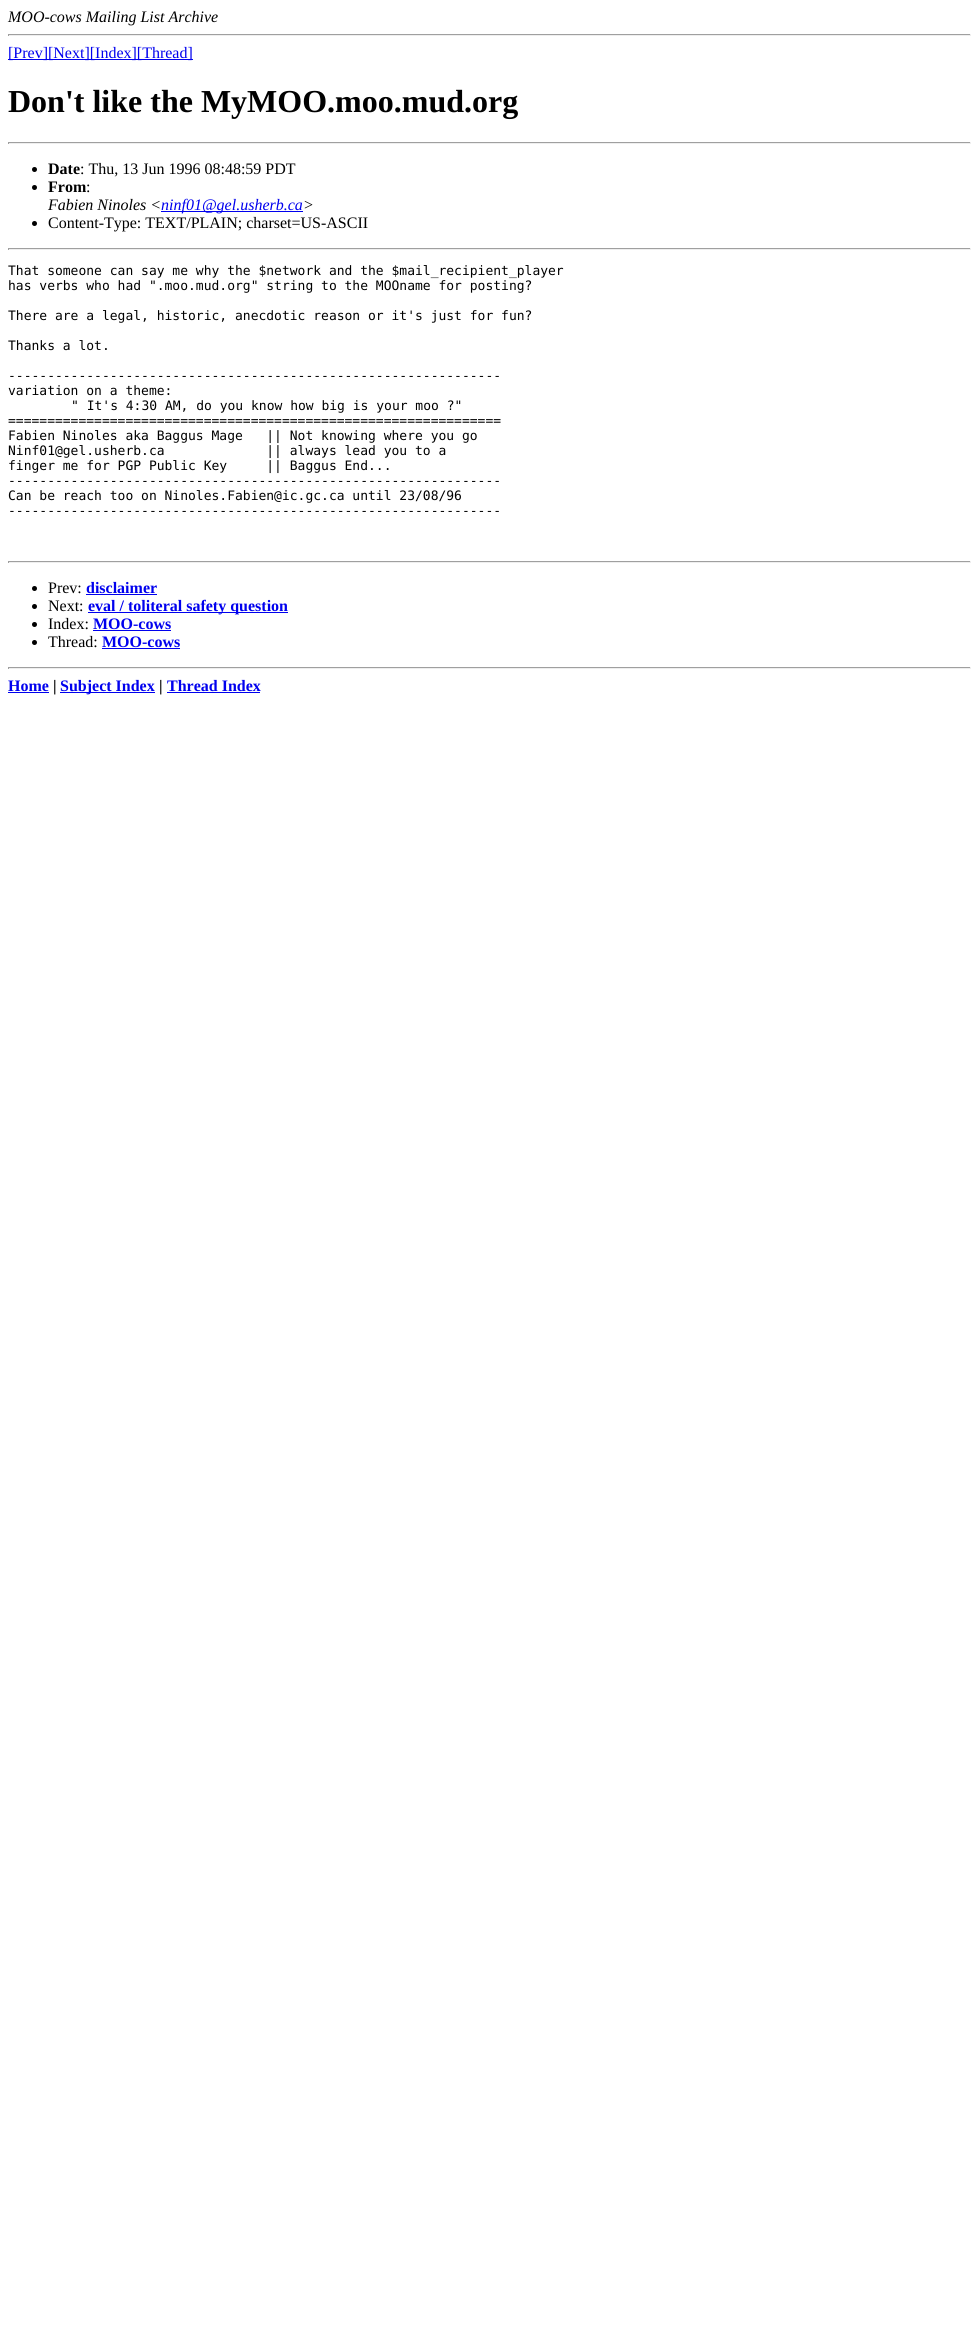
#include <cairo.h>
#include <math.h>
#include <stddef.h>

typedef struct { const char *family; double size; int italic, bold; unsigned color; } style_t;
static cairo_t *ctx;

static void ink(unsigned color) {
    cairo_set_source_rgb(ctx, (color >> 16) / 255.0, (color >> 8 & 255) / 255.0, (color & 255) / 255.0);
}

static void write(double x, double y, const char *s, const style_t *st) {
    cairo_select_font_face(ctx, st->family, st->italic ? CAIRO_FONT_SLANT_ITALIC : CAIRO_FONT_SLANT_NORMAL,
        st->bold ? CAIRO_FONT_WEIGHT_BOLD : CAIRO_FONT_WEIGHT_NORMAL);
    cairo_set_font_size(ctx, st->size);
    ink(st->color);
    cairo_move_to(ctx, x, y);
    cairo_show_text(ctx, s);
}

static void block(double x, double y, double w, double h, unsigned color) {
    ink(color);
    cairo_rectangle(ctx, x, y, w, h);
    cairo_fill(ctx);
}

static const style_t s1 = {"Liberation Serif", 16, 1, 0, 0x000000};
static const style_t s2 = {"Liberation Serif", 16, 0, 0, 0x0000ee};
static const style_t s3 = {"Liberation Serif", 32, 0, 1, 0x000000};
static const style_t s4 = {"Liberation Serif", 16, 0, 1, 0x000000};
static const style_t s5 = {"Liberation Serif", 16, 0, 0, 0x000000};
static const style_t s6 = {"Liberation Serif", 16, 1, 0, 0x0000ee};
static const style_t s7 = {"DejaVu Sans Mono", 13, 0, 0, 0x000000};
static const style_t s8 = {"Liberation Serif", 16, 0, 1, 0x0000ee};

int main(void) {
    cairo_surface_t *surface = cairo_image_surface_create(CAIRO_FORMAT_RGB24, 979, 2327);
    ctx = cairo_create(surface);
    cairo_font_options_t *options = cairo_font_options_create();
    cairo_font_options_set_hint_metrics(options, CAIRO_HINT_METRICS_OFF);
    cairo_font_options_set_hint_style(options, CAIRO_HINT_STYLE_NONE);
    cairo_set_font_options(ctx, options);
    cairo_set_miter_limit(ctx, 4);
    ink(0xffffff);
    cairo_paint(ctx);
    write(8, 22, "MOO-cows Mailing List Archive", &s1);
    block(8, 34, 963, 1, 0x9f9f9f);
    block(970, 34, 1, 2, 0xeeeeee);
    block(8, 35, 963, 1, 0xeeeeee);
    block(8, 34, 1, 2, 0x9f9f9f);
    block(8, 59, 185, 1, 0x0000ee);
    write(8, 58, "[Prev][Next][Index][Thread]", &s2);
    write(8, 112, "Don't like the MyMOO.moo.mud.org", &s3);
    block(8, 142, 963, 1, 0x9f9f9f);
    block(970, 142, 1, 2, 0xeeeeee);
    block(8, 143, 963, 1, 0xeeeeee);
    block(8, 142, 1, 2, 0x9f9f9f);
    ink(0x000000);
    cairo_new_path(ctx);
    cairo_arc(ctx, 34.5, 169.5, 2.5, 0, 2 * M_PI);
    cairo_fill(ctx);
    write(48, 174, "Date", &s4);
    write(80, 174, ": Thu, 13 Jun 1996 08:48:59 PDT", &s5);
    cairo_new_path(ctx);
    cairo_arc(ctx, 34.5, 187.5, 2.5, 0, 2 * M_PI);
    cairo_fill(ctx);
    write(48, 192, "From", &s4);
    write(86, 192, ":", &s5);
    write(48, 210, "Fabien Ninoles <", &s1);
    block(161, 211, 142, 1, 0x0000ee);
    write(161, 210, "ninf01@gel.usherb.ca", &s6);
    write(303, 210, ">", &s1);
    cairo_new_path(ctx);
    cairo_arc(ctx, 34.5, 223.5, 2.5, 0, 2 * M_PI);
    cairo_fill(ctx);
    write(48, 228, "Content-Type: TEXT/PLAIN; charset=US-ASCII", &s5);
    block(8, 248, 963, 1, 0x9f9f9f);
    block(970, 248, 1, 2, 0xeeeeee);
    block(8, 249, 963, 1, 0xeeeeee);
    block(8, 248, 1, 2, 0x9f9f9f);
    write(8, 275, "That someone can say me why the $network and the $mail_recipient_player", &s7);
    write(8, 290, "has verbs who had \".moo.mud.org\" string to the MOOname for posting?", &s7);
    write(8, 320, "There are a legal, historic, anecdotic reason or it's just for fun?", &s7);
    write(8, 350, "Thanks a lot.", &s7);
    write(8, 380, "---------------------------------------------------------------", &s7);
    write(8, 395, "variation on a theme:", &s7);
    write(71, 410, "\" It's 4:30 AM, do you know how big is your moo ?\"", &s7);
    write(8, 425, "===============================================================", &s7);
    write(8, 440, "Fabien Ninoles aka Baggus Mage   || Not knowing where you go", &s7);
    write(8, 455, "Ninf01@gel.usherb.ca             || always lead you to a", &s7);
    write(8, 470, "finger me for PGP Public Key     || Baggus End...", &s7);
    write(8, 485, "---------------------------------------------------------------", &s7);
    write(8, 500, "Can be reach too on Ninoles.Fabien@ic.gc.ca until 23/08/96", &s7);
    write(8, 515, "---------------------------------------------------------------", &s7);
    block(8, 561, 963, 1, 0x9f9f9f);
    block(970, 561, 1, 2, 0xeeeeee);
    block(8, 562, 963, 1, 0xeeeeee);
    block(8, 561, 1, 2, 0x9f9f9f);
    ink(0x000000);
    cairo_new_path(ctx);
    cairo_arc(ctx, 34.5, 588.5, 2.5, 0, 2 * M_PI);
    cairo_fill(ctx);
    write(48, 593, "Prev:", &s5);
    write(86, 593, "disclaimer", &s8);
    block(86, 594, 71, 1, 0x0000ee);
    ink(0x000000);
    cairo_new_path(ctx);
    cairo_arc(ctx, 34.5, 606.5, 2.5, 0, 2 * M_PI);
    cairo_fill(ctx);
    write(48, 611, "Next:", &s5);
    block(88, 612, 200, 1, 0x0000ee);
    write(88, 611, "eval / toliteral safety question", &s8);
    ink(0x000000);
    cairo_new_path(ctx);
    cairo_arc(ctx, 34.5, 624.5, 2.5, 0, 2 * M_PI);
    cairo_fill(ctx);
    write(48, 629, "Index:", &s5);
    write(93, 629, "MOO-cows", &s8);
    block(93, 630, 78, 1, 0x0000ee);
    ink(0x000000);
    cairo_new_path(ctx);
    cairo_arc(ctx, 34.5, 642.5, 2.5, 0, 2 * M_PI);
    cairo_fill(ctx);
    write(48, 647, "Thread:", &s5);
    write(102, 647, "MOO-cows", &s8);
    block(102, 648, 78, 1, 0x0000ee);
    block(8, 667, 963, 1, 0x9f9f9f);
    block(970, 667, 1, 2, 0xeeeeee);
    block(8, 668, 963, 1, 0xeeeeee);
    block(8, 667, 1, 2, 0x9f9f9f);
    write(8, 691, "Home", &s8);
    block(8, 692, 41, 1, 0x0000ee);
    write(53, 691, "|", &s4);
    block(60, 692, 95, 1, 0x0000ee);
    write(60, 691, "Subject Index", &s8);
    write(159, 691, "|", &s4);
    write(167, 691, "Thread Index", &s8);
    block(167, 692, 93, 1, 0x0000ee);
    cairo_surface_write_to_png(surface, "screenshot.png");
    cairo_font_options_destroy(options);
    cairo_destroy(ctx);
    cairo_surface_destroy(surface);
    return 0;
}
